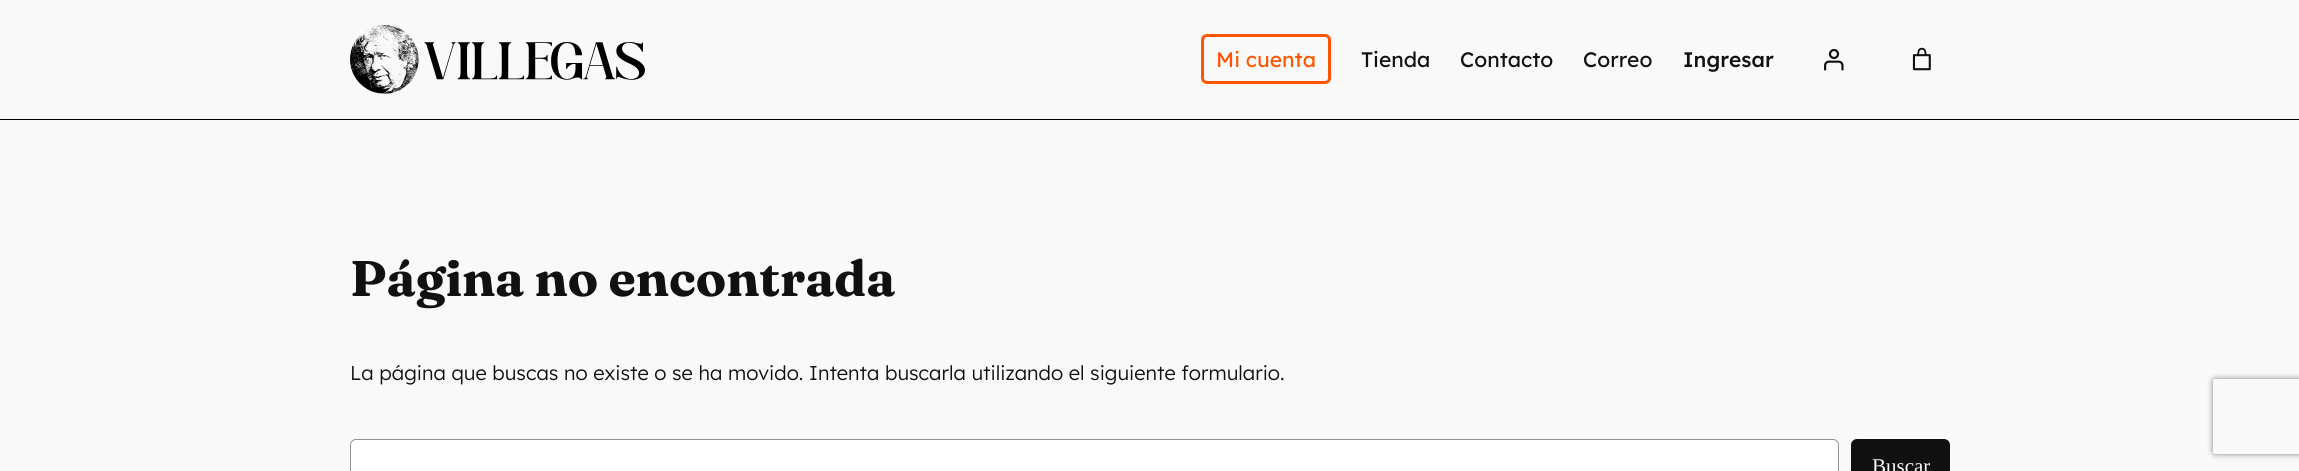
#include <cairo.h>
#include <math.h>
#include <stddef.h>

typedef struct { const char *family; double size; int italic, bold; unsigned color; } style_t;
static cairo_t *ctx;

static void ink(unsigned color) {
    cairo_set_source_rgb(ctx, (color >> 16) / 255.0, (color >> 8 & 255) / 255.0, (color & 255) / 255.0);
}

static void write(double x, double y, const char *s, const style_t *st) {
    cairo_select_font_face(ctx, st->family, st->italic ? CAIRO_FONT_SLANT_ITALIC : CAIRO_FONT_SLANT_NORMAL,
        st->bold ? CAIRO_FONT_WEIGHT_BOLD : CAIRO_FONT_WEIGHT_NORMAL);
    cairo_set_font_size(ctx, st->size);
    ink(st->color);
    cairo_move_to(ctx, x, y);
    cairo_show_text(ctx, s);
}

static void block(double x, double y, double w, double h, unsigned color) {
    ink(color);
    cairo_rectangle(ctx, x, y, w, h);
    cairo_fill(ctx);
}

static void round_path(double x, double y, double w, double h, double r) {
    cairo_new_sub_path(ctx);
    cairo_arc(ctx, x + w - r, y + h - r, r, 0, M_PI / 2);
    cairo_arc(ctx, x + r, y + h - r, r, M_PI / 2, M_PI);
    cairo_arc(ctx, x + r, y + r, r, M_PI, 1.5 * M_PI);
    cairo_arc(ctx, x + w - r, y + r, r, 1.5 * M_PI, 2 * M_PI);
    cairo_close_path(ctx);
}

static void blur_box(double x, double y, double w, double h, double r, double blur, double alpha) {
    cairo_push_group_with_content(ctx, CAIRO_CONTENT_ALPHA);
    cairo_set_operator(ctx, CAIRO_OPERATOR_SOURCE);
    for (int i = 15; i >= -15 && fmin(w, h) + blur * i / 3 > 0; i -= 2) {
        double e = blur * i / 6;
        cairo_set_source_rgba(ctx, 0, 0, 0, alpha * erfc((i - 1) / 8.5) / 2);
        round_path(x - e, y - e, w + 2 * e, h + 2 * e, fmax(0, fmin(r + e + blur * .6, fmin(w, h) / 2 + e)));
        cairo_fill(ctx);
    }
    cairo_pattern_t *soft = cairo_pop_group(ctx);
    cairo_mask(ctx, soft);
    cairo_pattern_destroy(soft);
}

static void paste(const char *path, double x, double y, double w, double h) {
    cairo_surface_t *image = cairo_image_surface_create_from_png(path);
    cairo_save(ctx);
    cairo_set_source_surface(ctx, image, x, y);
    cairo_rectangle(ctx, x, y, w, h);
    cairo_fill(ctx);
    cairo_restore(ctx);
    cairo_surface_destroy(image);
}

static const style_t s1 = {"Lexend", 21, 0, 0, 0xff5500};
static const style_t s2 = {"Lexend", 21, 0, 0, 0x111111};
static const style_t s3 = {"Lexend Medium", 21, 0, 0, 0x111111};
static const style_t s4 = {"Fraunces", 50, 0, 1, 0x111111};
static const style_t s5 = {"Lexend Light", 20, 0, 0, 0x111111};
static const style_t s6 = {"Liberation Serif", 21, 0, 0, 0xf9f9f9};

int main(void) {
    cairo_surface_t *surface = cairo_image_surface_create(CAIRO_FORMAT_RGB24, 2299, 471);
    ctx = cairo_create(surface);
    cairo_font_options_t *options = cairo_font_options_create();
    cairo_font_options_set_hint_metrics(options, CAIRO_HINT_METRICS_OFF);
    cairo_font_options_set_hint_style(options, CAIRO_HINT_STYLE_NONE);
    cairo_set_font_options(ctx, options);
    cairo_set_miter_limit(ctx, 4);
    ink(0xf9f9f9);
    cairo_paint(ctx);
    block(0, 119, 2299, 1, 0x000000);
    paste("pic1.png", 350, 25, 295, 69);
    round_path(1202.5, 35.5, 127, 47, 4.5);
    ink(0xff5500);
    cairo_set_line_width(ctx, 3);
    cairo_stroke(ctx);
    write(1216, 67, "Mi cuenta", &s1);
    write(1361, 67, "Tienda", &s2);
    write(1460, 67, "Contacto", &s2);
    write(1583, 67, "Correo", &s2);
    write(1683, 67, "Ingresar", &s3);
    paste("pic2.png", 1824, 48, 20, 23);
    paste("pic3.png", 1912, 47, 19, 24);
    write(350, 296, "Página no encontrada", &s4);
    write(350, 380, "La página que buscas no existe o se ha movido. Intenta buscarla utilizando el siguiente formulario.", &s5);
    ink(0xffffff);
    round_path(350.5, 439.5, 1488, 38, 5.5);
    cairo_fill_preserve(ctx);
    ink(0x949494);
    cairo_set_line_width(ctx, 1);
    cairo_stroke(ctx);
    ink(0x111111);
    round_path(1851, 439, 99, 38, 6);
    cairo_fill(ctx);
    write(1872, 473, "Buscar", &s6);
    cairo_save(ctx);
    cairo_set_fill_rule(ctx, CAIRO_FILL_RULE_EVEN_ODD);
    cairo_new_path(ctx);
    cairo_move_to(ctx, 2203, 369);
    cairo_line_to(ctx, 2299, 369);
    cairo_line_to(ctx, 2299, 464);
    cairo_line_to(ctx, 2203, 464);
    cairo_close_path(ctx);
    cairo_move_to(ctx, 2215.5, 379);
    cairo_line_to(ctx, 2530.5, 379);
    cairo_curve_to(ctx, 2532, 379, 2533, 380, 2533, 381.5);
    cairo_line_to(ctx, 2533, 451.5);
    cairo_curve_to(ctx, 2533, 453, 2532, 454, 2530.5, 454);
    cairo_line_to(ctx, 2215.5, 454);
    cairo_curve_to(ctx, 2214, 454, 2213, 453, 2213, 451.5);
    cairo_line_to(ctx, 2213, 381.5);
    cairo_curve_to(ctx, 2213, 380, 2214, 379, 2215.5, 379);
    cairo_close_path(ctx);
    cairo_clip(ctx);
    ink(0x808080);
    blur_box(2213, 379, 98, 75, 2.5, 3, 1);
    cairo_restore(ctx);
    cairo_surface_write_to_png(surface, "screenshot.png");
    cairo_font_options_destroy(options);
    cairo_destroy(ctx);
    cairo_surface_destroy(surface);
    return 0;
}
